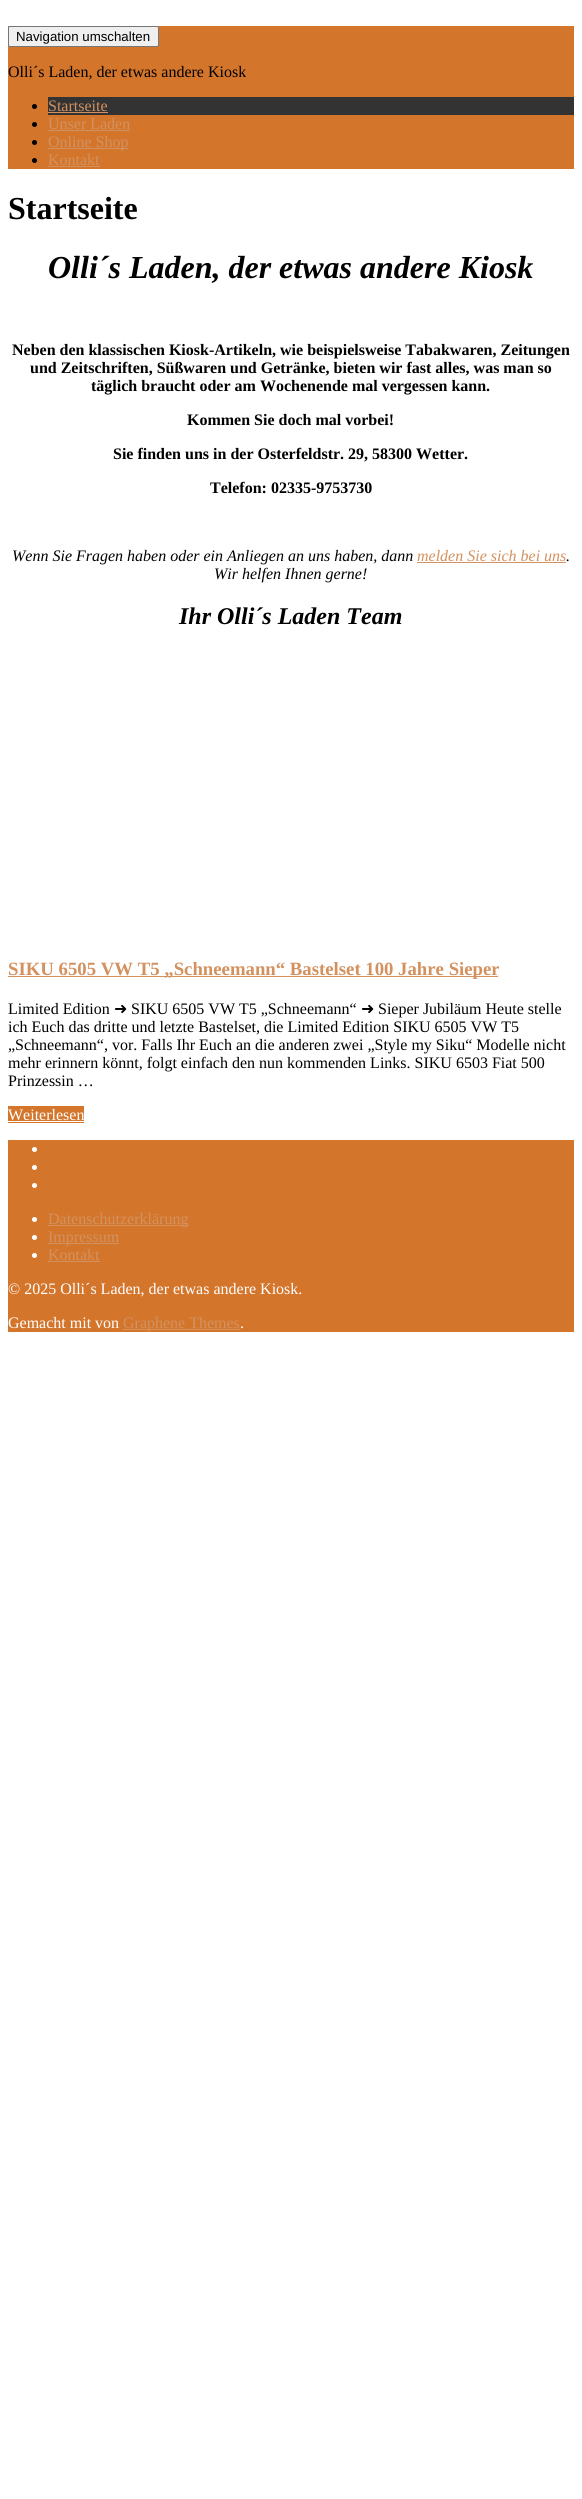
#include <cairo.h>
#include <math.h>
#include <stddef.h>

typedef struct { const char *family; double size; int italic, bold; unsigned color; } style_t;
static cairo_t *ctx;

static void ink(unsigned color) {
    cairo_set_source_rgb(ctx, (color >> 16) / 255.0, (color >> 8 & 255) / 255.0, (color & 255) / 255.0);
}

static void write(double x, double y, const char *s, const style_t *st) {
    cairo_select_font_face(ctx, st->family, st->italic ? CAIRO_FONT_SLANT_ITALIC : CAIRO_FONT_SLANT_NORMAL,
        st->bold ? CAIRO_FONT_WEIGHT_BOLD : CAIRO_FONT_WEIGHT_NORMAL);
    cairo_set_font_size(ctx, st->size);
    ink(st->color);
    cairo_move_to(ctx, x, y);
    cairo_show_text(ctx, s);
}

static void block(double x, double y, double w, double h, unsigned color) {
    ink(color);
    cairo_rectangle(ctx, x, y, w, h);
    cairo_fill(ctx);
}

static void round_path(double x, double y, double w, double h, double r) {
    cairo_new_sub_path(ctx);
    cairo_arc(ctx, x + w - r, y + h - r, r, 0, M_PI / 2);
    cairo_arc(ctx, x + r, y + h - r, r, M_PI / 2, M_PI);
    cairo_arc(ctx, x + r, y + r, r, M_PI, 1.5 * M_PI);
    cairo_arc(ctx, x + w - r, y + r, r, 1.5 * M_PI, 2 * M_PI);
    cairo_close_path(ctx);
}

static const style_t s1 = {"Liberation Sans", 13.25, 0, 0, 0x000000};
static const style_t s2 = {"Liberation Serif", 16, 0, 0, 0x000000};
static const style_t s3 = {"Liberation Serif", 16, 0, 0, 0xd3915f};
static const style_t s4 = {"Liberation Serif", 32, 0, 1, 0x000000};
static const style_t s5 = {"Liberation Serif", 32, 1, 1, 0x000000};
static const style_t s6 = {"Liberation Serif", 16, 0, 1, 0x000000};
static const style_t s7 = {"Liberation Serif", 16, 1, 0, 0x000000};
static const style_t s8 = {"Liberation Serif", 16, 1, 0, 0xd3915f};
static const style_t s9 = {"Liberation Serif", 24, 1, 1, 0x000000};
static const style_t s10 = {"Liberation Serif", 18.75, 0, 1, 0xd3915f};
static const style_t s11 = {"DejaVu Sans", 16, 0, 0, 0x000000};
static const style_t s12 = {"Liberation Serif", 16, 0, 0, 0xffffff};

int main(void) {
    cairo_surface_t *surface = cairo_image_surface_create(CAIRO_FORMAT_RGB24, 582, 2499);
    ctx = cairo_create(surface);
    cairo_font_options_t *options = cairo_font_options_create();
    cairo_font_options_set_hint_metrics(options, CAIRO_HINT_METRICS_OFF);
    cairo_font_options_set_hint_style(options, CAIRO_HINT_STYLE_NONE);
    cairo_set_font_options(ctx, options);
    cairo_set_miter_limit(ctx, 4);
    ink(0xffffff);
    cairo_paint(ctx);
    block(8, 26, 566, 143, 0xd4752c);
    ink(0xefefef);
    round_path(8.5, 26.5, 150, 20, 1.5);
    cairo_fill_preserve(ctx);
    ink(0x767676);
    cairo_set_line_width(ctx, 1);
    cairo_stroke(ctx);
    write(16, 41, "Navigation umschalten", &s1);
    write(8, 77, "Olli´s Laden, der etwas andere Kiosk", &s2);
    block(48, 97, 526, 18, 0x333333);
    ink(0x000000);
    cairo_new_path(ctx);
    cairo_arc(ctx, 34.5, 106.5, 2.5, 0, 2 * M_PI);
    cairo_fill(ctx);
    write(48, 111, "Startseite", &s3);
    block(48, 112, 60, 1, 0xd3915f);
    ink(0x000000);
    cairo_new_path(ctx);
    cairo_arc(ctx, 34.5, 124.5, 2.5, 0, 2 * M_PI);
    cairo_fill(ctx);
    write(48, 129, "Unser Laden", &s3);
    block(48, 130, 82, 1, 0xd3915f);
    ink(0x000000);
    cairo_new_path(ctx);
    cairo_arc(ctx, 34.5, 142.5, 2.5, 0, 2 * M_PI);
    cairo_fill(ctx);
    block(48, 148, 80, 1, 0xd3915f);
    write(48, 147, "Online Shop", &s3);
    ink(0x000000);
    cairo_new_path(ctx);
    cairo_arc(ctx, 34.5, 160.5, 2.5, 0, 2 * M_PI);
    cairo_fill(ctx);
    write(48, 165, "Kontakt", &s3);
    block(48, 166, 52, 1, 0xd3915f);
    write(8, 219, "Startseite", &s4);
    write(48, 278, "Olli´s Laden, der etwas andere Kiosk", &s5);
    write(12, 355, "Neben den klassischen Kiosk-Artikeln, wie beispielsweise Tabakwaren, Zeitungen", &s6);
    write(30, 373, "und Zeitschriften, Süßwaren und Getränke, bieten wir fast alles, was man so", &s6);
    write(91, 391, "täglich braucht oder am Wochenende mal vergessen kann.", &s6);
    write(187, 425, "Kommen Sie doch mal vorbei!", &s6);
    write(113, 459, "Sie finden uns in der Osterfeldstr. 29, 58300 Wetter.", &s6);
    write(210, 493, "Telefon: 02335-9753730", &s6);
    write(12, 561, "Wenn Sie Fragen haben oder ein Anliegen an uns haben, dann", &s7);
    write(417, 561, "melden Sie sich bei uns", &s8);
    block(417, 562, 149, 1, 0xd3915f);
    write(566, 561, ".", &s7);
    write(214, 579, "Wir helfen Ihnen gerne!", &s7);
    write(179, 624, "Ihr Olli´s Laden Team", &s9);
    block(8, 976, 490, 1, 0xd3915f);
    write(8, 975, "SIKU 6505 VW T5 „Schneemann“ Bastelset 100 Jahre Sieper", &s10);
    write(8, 1014, "Limited Edition", &s2);
    write(114, 1014, "➜", &s11);
    write(131, 1014, "SIKU 6505 VW T5 „Schneemann“", &s2);
    write(361, 1014, "➜", &s11);
    write(378, 1014, "Sieper Jubiläum Heute stelle", &s2);
    write(8, 1032, "ich Euch das dritte und letzte Bastelset, die Limited Edition SIKU 6505 VW T5", &s2);
    write(8, 1050, "„Schneemann“, vor. Falls Ihr Euch an die anderen zwei „Style my Siku“ Modelle nicht", &s2);
    write(8, 1068, "mehr erinnern könnt, folgt einfach den nun kommenden Links. SIKU 6503 Fiat 500", &s2);
    write(8, 1086, "Prinzessin …", &s2);
    block(8, 1106, 76, 17, 0xd4752c);
    write(8, 1120, "Weiterlesen", &s12);
    block(8, 1121, 76, 1, 0xffffff);
    block(8, 1140, 566, 192, 0xd4752c);
    ink(0xffffff);
    cairo_new_path(ctx);
    cairo_arc(ctx, 34.5, 1149.5, 2.5, 0, 2 * M_PI);
    cairo_fill(ctx);
    cairo_arc(ctx, 34.5, 1167.5, 2.5, 0, 2 * M_PI);
    cairo_fill(ctx);
    cairo_arc(ctx, 34.5, 1185.5, 2.5, 0, 2 * M_PI);
    cairo_fill(ctx);
    cairo_arc(ctx, 34.5, 1219.5, 2.5, 0, 2 * M_PI);
    cairo_fill(ctx);
    block(48, 1225, 140, 1, 0xd3915f);
    write(48, 1224, "Datenschutzerklärung", &s3);
    ink(0xffffff);
    cairo_new_path(ctx);
    cairo_arc(ctx, 34.5, 1237.5, 2.5, 0, 2 * M_PI);
    cairo_fill(ctx);
    block(48, 1243, 71, 1, 0xd3915f);
    write(48, 1242, "Impressum", &s3);
    ink(0xffffff);
    cairo_new_path(ctx);
    cairo_arc(ctx, 34.5, 1255.5, 2.5, 0, 2 * M_PI);
    cairo_fill(ctx);
    write(48, 1260, "Kontakt", &s3);
    block(48, 1261, 52, 1, 0xd3915f);
    write(8, 1294, "© 2025 Olli´s Laden, der etwas andere Kiosk.", &s12);
    write(8, 1328, "Gemacht mit von", &s12);
    block(123, 1329, 117, 1, 0xd3915f);
    write(123, 1328, "Graphene Themes", &s3);
    write(240, 1328, ".", &s12);
    cairo_surface_write_to_png(surface, "screenshot.png");
    cairo_font_options_destroy(options);
    cairo_destroy(ctx);
    cairo_surface_destroy(surface);
    return 0;
}
